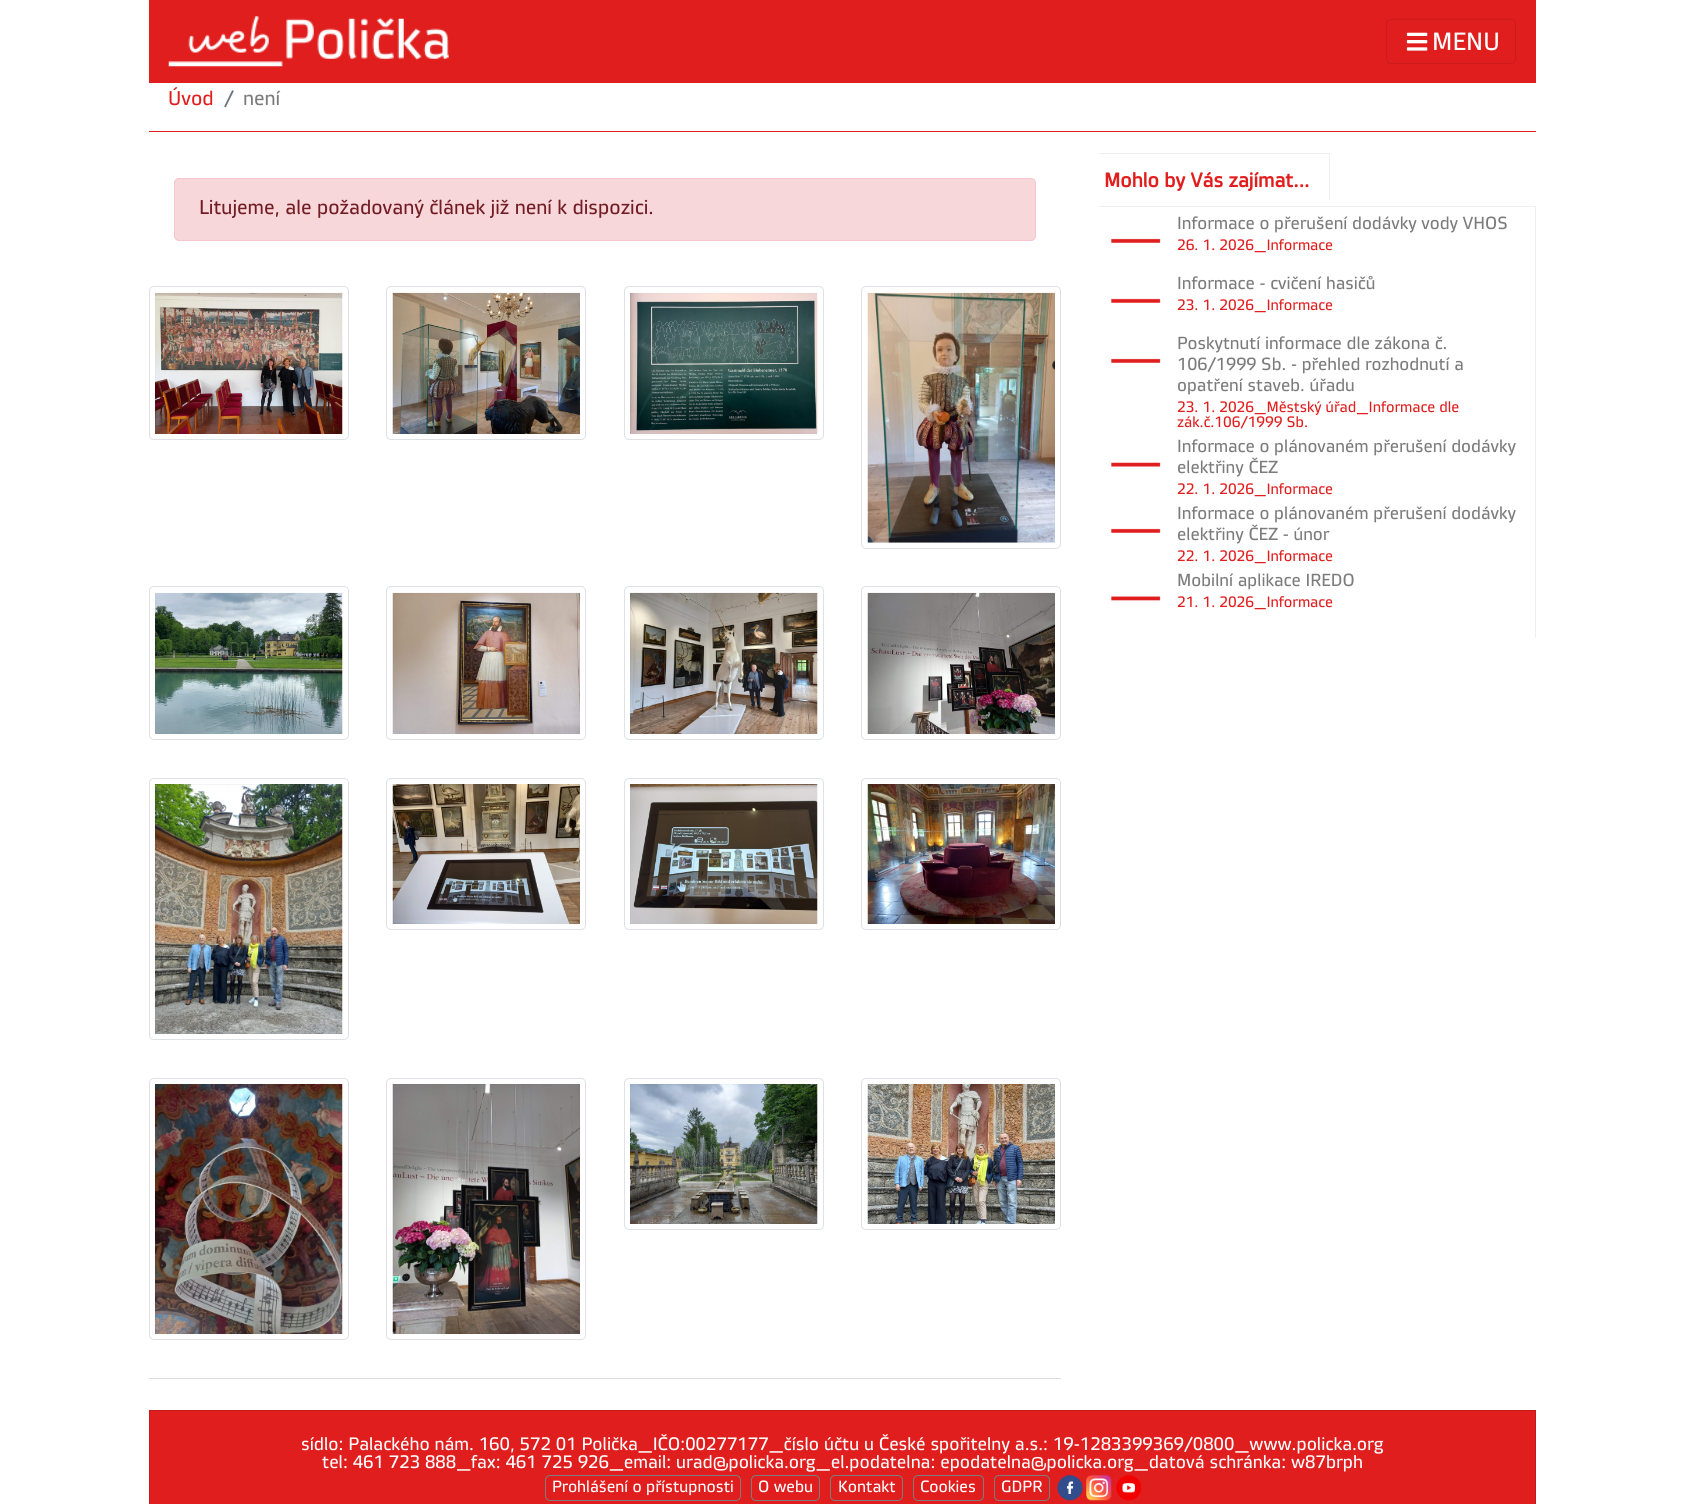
#include <cairo.h>
#include <math.h>
#include <stddef.h>

typedef struct { const char *family; double size; int italic, bold; unsigned color; } style_t;
static cairo_t *ctx;

static void ink(unsigned color) {
    cairo_set_source_rgb(ctx, (color >> 16) / 255.0, (color >> 8 & 255) / 255.0, (color & 255) / 255.0);
}

static void write(double x, double y, const char *s, const style_t *st) {
    cairo_select_font_face(ctx, st->family, st->italic ? CAIRO_FONT_SLANT_ITALIC : CAIRO_FONT_SLANT_NORMAL,
        st->bold ? CAIRO_FONT_WEIGHT_BOLD : CAIRO_FONT_WEIGHT_NORMAL);
    cairo_set_font_size(ctx, st->size);
    ink(st->color);
    cairo_move_to(ctx, x, y);
    cairo_show_text(ctx, s);
}

static void block(double x, double y, double w, double h, unsigned color) {
    ink(color);
    cairo_rectangle(ctx, x, y, w, h);
    cairo_fill(ctx);
}

static void round_path(double x, double y, double w, double h, double r) {
    cairo_new_sub_path(ctx);
    cairo_arc(ctx, x + w - r, y + h - r, r, 0, M_PI / 2);
    cairo_arc(ctx, x + r, y + h - r, r, M_PI / 2, M_PI);
    cairo_arc(ctx, x + r, y + r, r, M_PI, 1.5 * M_PI);
    cairo_arc(ctx, x + w - r, y + r, r, 1.5 * M_PI, 2 * M_PI);
    cairo_close_path(ctx);
}

static void paste(const char *path, double x, double y, double w, double h) {
    cairo_surface_t *image = cairo_image_surface_create_from_png(path);
    cairo_save(ctx);
    cairo_set_source_surface(ctx, image, x, y);
    cairo_rectangle(ctx, x, y, w, h);
    cairo_fill(ctx);
    cairo_restore(ctx);
    cairo_surface_destroy(image);
}

static const style_t s1 = {"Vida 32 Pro", 25, 0, 0, 0xffffff};
static const style_t s2 = {"Vida 32 Pro", 20, 0, 0, 0xe11e1e};
static const style_t s3 = {"Vida 32 Pro", 20, 0, 0, 0x6c757d};
static const style_t s4 = {"Vida 32 Pro", 20, 0, 0, 0x7c7c7c};
static const style_t s5 = {"Vida 32 Pro", 20, 0, 0, 0x721c24};
static const style_t s6 = {"Vida 32 Pro", 20, 0, 1, 0xe11e1e};
static const style_t s7 = {"Vida 32 Pro", 17.5, 0, 0, 0x7c7c7c};
static const style_t s8 = {"Vida 32 Pro", 15, 0, 0, 0xe11e1e};
static const style_t s9 = {"Vida 32 Pro", 18, 0, 0, 0xffffff};
static const style_t s10 = {"Vida 32 Pro", 16.25, 0, 0, 0xffffff};

int main(void) {
    cairo_surface_t *surface = cairo_image_surface_create(CAIRO_FORMAT_RGB24, 1683, 1504);
    ctx = cairo_create(surface);
    cairo_font_options_t *options = cairo_font_options_create();
    cairo_font_options_set_hint_metrics(options, CAIRO_HINT_METRICS_OFF);
    cairo_font_options_set_hint_style(options, CAIRO_HINT_STYLE_NONE);
    cairo_set_font_options(ctx, options);
    cairo_set_miter_limit(ctx, 4);
    ink(0xffffff);
    cairo_paint(ctx);
    block(149, 0, 1387, 83, 0xe11e1e);
    paste("pic1.png", 168, 16, 281, 51);
    round_path(1386.5, 19.5, 129, 44, 4.5);
    ink(0xcb1b1b);
    cairo_set_line_width(ctx, 1);
    cairo_stroke(ctx);
    paste("pic2.png", 1406, 32, 22, 19);
    write(1432, 50, "MENU", &s1);
    block(149, 131, 1387, 1, 0xe11e1e);
    write(168, 105, "Úvod", &s2);
    write(224, 105, "/", &s3);
    write(243, 105, "není", &s4);
    ink(0xf8d7da);
    round_path(174.5, 178.5, 861, 62, 4.5);
    cairo_fill_preserve(ctx);
    ink(0xf5c6cb);
    cairo_stroke(ctx);
    write(199, 214, "Litujeme, ale požadovaný článek již není k dispozici.", &s5);
    round_path(149.5, 286.5, 199, 153, 4.5);
    ink(0xdee2e6);
    cairo_stroke(ctx);
    paste("pic3.png", 155, 292, 188, 142);
    round_path(386.5, 286.5, 199, 153, 4.5);
    cairo_stroke(ctx);
    paste("pic4.png", 392, 292, 188, 142);
    round_path(624.5, 286.5, 199, 153, 4.5);
    cairo_stroke(ctx);
    paste("pic5.png", 630, 292, 188, 142);
    round_path(861.5, 286.5, 199, 262, 4.5);
    cairo_stroke(ctx);
    paste("pic6.png", 867, 292, 188, 251);
    round_path(149.5, 586.5, 199, 153, 4.5);
    cairo_stroke(ctx);
    paste("pic7.png", 155, 592, 188, 142);
    round_path(386.5, 586.5, 199, 153, 4.5);
    cairo_stroke(ctx);
    paste("pic8.png", 392, 592, 188, 142);
    round_path(624.5, 586.5, 199, 153, 4.5);
    cairo_stroke(ctx);
    paste("pic9.png", 630, 592, 188, 142);
    round_path(861.5, 586.5, 199, 153, 4.5);
    cairo_stroke(ctx);
    paste("pic10.png", 867, 592, 188, 142);
    round_path(149.5, 778.5, 199, 261, 4.5);
    cairo_stroke(ctx);
    paste("pic11.png", 155, 784, 188, 250);
    round_path(386.5, 778.5, 199, 151, 4.5);
    cairo_stroke(ctx);
    paste("pic12.png", 392, 784, 188, 140);
    round_path(624.5, 778.5, 199, 151, 4.5);
    cairo_stroke(ctx);
    paste("pic13.png", 630, 784, 188, 140);
    round_path(861.5, 778.5, 199, 151, 4.5);
    cairo_stroke(ctx);
    paste("pic14.png", 867, 784, 188, 140);
    round_path(149.5, 1078.5, 199, 261, 4.5);
    cairo_stroke(ctx);
    paste("pic15.png", 155, 1084, 188, 250);
    round_path(386.5, 1078.5, 199, 261, 4.5);
    cairo_stroke(ctx);
    paste("pic16.png", 392, 1084, 188, 250);
    round_path(624.5, 1078.5, 199, 151, 4.5);
    cairo_stroke(ctx);
    paste("pic17.png", 630, 1084, 188, 140);
    round_path(861.5, 1078.5, 199, 151, 4.5);
    cairo_stroke(ctx);
    paste("pic18.png", 867, 1084, 188, 140);
    block(149, 1378, 912, 1, 0xdfdfdf);
    block(1099, 153, 231, 1, 0xf0efef);
    block(1329, 153, 1, 47, 0xf0efef);
    write(1104, 187, "Mohlo by Vás zajímat...", &s6);
    block(1099, 206, 437, 1, 0xf0efef);
    block(1535, 206, 1, 432, 0xf0efef);
    paste("pic19.png", 1111, 238, 50, 5);
    write(1177, 229, "Informace o přerušení dodávky vody VHOS", &s7);
    write(1177, 250, "26. 1. 2026_Informace", &s8);
    paste("pic19.png", 1111, 298, 50, 5);
    write(1177, 289, "Informace - cvičení hasičů", &s7);
    write(1177, 310, "23. 1. 2026_Informace", &s8);
    paste("pic19.png", 1111, 358, 50, 5);
    write(1177, 349, "Poskytnutí informace dle zákona č.", &s7);
    write(1177, 370, "106/1999 Sb. - přehled rozhodnutí a", &s7);
    write(1177, 391, "opatření staveb. úřadu", &s7);
    write(1177, 412, "23. 1. 2026_Městský úřad_Informace dle", &s8);
    write(1177, 427, "zák.č.106/1999 Sb.", &s8);
    paste("pic20.png", 1111, 462, 50, 5);
    write(1177, 452, "Informace o plánovaném přerušení dodávky", &s7);
    write(1177, 473, "elektřiny ČEZ", &s7);
    write(1177, 494, "22. 1. 2026_Informace", &s8);
    paste("pic19.png", 1111, 528, 50, 5);
    write(1177, 519, "Informace o plánovaném přerušení dodávky", &s7);
    write(1177, 540, "elektřiny ČEZ - únor", &s7);
    write(1177, 561, "22. 1. 2026_Informace", &s8);
    paste("pic21.png", 1111, 596, 50, 5);
    write(1177, 586, "Mobilní aplikace IREDO", &s7);
    write(1177, 607, "21. 1. 2026_Informace", &s8);
    cairo_rectangle(ctx, 149.5, 1410.5, 1386, 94);
    cairo_fill_preserve(ctx);
    ink(0xc51a1a);
    cairo_stroke(ctx);
    write(301, 1450, "sídlo: Palackého nám. 160, 572 01 Polička_IČO:00277177_číslo účtu u České spořitelny a.s.: 19-1283399369/0800_www.policka.org", &s9);
    write(322, 1468, "tel: 461 723 888_fax: 461 725 926_email: urad@policka.org_el.podatelna: epodatelna@policka.org_datová schránka: w87brph", &s9);
    round_path(545.5, 1475.5, 195, 25, 4.5);
    ink(0x7c7c7c);
    cairo_stroke(ctx);
    write(552, 1492, "Prohlášení o přístupnosti", &s10);
    round_path(751.5, 1475.5, 68, 25, 4.5);
    ink(0x7c7c7c);
    cairo_stroke(ctx);
    write(758, 1492, "O webu", &s10);
    round_path(830.5, 1475.5, 72, 25, 4.5);
    ink(0x7c7c7c);
    cairo_stroke(ctx);
    write(838, 1492, "Kontakt", &s10);
    round_path(913.5, 1475.5, 70, 25, 4.5);
    ink(0x7c7c7c);
    cairo_stroke(ctx);
    write(920, 1492, "Cookies", &s10);
    round_path(994.5, 1475.5, 55, 25, 4.5);
    ink(0x7c7c7c);
    cairo_stroke(ctx);
    write(1001, 1492, "GDPR", &s10);
    paste("pic22.png", 1057, 1475, 26, 26);
    paste("pic23.png", 1086, 1475, 26, 26);
    paste("pic24.png", 1116, 1475, 26, 26);
    cairo_surface_write_to_png(surface, "screenshot.png");
    cairo_font_options_destroy(options);
    cairo_destroy(ctx);
    cairo_surface_destroy(surface);
    return 0;
}
